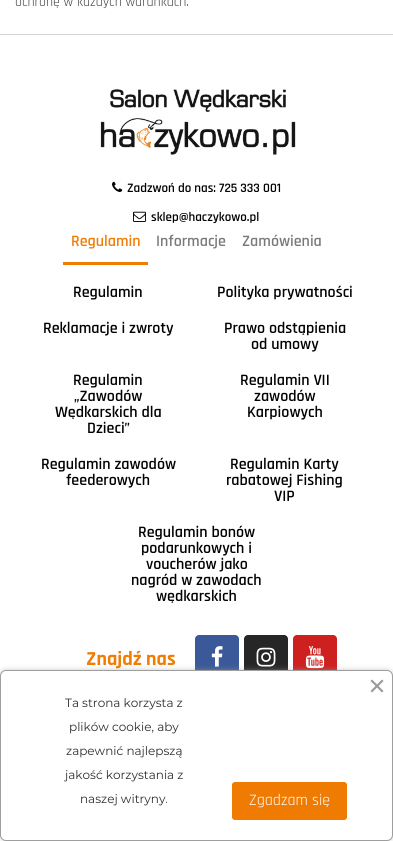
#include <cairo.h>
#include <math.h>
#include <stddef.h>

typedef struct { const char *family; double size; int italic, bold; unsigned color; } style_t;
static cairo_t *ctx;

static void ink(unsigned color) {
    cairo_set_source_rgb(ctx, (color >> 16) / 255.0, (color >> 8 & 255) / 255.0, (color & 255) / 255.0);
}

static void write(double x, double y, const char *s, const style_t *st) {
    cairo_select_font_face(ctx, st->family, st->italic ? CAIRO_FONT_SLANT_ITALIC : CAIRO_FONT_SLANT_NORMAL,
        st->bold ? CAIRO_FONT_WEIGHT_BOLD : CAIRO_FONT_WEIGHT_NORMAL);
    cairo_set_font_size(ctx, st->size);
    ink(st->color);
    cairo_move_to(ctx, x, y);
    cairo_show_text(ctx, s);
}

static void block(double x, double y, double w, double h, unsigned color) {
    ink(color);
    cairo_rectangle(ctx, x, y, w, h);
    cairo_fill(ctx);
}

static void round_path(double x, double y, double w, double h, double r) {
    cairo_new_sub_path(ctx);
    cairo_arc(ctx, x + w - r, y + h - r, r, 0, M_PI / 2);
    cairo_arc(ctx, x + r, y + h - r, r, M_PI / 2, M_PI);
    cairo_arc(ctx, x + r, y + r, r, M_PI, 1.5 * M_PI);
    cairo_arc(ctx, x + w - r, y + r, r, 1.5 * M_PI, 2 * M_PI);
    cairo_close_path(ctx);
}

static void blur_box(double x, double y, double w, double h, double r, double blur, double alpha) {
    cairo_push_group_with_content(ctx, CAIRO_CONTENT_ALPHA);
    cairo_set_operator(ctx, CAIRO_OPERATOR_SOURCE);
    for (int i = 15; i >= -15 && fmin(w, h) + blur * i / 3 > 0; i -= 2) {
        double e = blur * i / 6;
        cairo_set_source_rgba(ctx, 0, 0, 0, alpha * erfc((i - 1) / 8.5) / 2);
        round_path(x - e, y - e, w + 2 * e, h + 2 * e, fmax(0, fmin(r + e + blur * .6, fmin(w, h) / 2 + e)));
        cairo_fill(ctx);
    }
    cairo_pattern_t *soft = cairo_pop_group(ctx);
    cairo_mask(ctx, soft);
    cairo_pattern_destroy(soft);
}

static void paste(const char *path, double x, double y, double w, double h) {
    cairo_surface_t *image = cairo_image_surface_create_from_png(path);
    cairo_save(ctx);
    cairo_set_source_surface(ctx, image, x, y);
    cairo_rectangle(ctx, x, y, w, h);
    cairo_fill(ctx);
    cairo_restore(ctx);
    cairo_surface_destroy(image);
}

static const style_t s1 = {"Rajdhani", 14, 0, 0, 0x414141};
static const style_t s2 = {"Rajdhani SemiBold", 13, 0, 0, 0x000000};
static const style_t s3 = {"Rajdhani SemiBold", 16, 0, 0, 0xf07c03};
static const style_t s4 = {"Rajdhani SemiBold", 16, 0, 0, 0x7a7a7a};
static const style_t s5 = {"Rajdhani SemiBold", 16, 0, 0, 0x000000};
static const style_t s6 = {"Rajdhani", 20, 0, 1, 0xf07c03};
static const style_t s7 = {"Montserrat", 12, 0, 0, 0x302e2e};
static const style_t s8 = {"Rajdhani", 16, 0, 0, 0xffffff};

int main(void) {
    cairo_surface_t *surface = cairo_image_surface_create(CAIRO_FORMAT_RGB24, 393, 841);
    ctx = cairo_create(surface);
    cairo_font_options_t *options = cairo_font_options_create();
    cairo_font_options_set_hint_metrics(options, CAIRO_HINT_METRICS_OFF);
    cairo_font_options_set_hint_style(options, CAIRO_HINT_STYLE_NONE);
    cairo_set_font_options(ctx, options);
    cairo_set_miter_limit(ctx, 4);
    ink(0xffffff);
    cairo_paint(ctx);
    write(15, 6, "ochronę w każdych warunkach.", &s1);
    block(0, 34, 393, 1, 0xd4d4d4);
    paste("pic1.png", 100, 89, 196, 66);
    paste("pic2.png", 112, 181, 11, 11);
    write(127, 192, "Zadzwoń do nas: 725 333 001", &s2);
    paste("pic3.png", 133, 211, 13, 11);
    write(151, 221, "sklep@haczykowo.pl", &s2);
    write(71, 246, "Regulamin", &s3);
    block(63, 262, 85, 3, 0xf07c03);
    write(156, 246, "Informacje", &s4);
    write(242, 246, "Zamówienia", &s4);
    write(73, 297, "Regulamin", &s5);
    write(217, 297, "Polityka prywatności", &s5);
    write(43, 333, "Reklamacje i zwroty", &s5);
    write(224, 333, "Prawo odstąpienia", &s5);
    write(251, 349, "od umowy", &s5);
    write(73, 385, "Regulamin", &s5);
    write(74, 401, "„Zawodów", &s5);
    write(55, 417, "Wędkarskich dla", &s5);
    write(87, 433, "Dzieci”", &s5);
    write(240, 385, "Regulamin VII", &s5);
    write(254, 401, "zawodów", &s5);
    write(247, 417, "Karpiowych", &s5);
    write(41, 469, "Regulamin zawodów", &s5);
    write(66, 485, "feederowych", &s5);
    write(230, 469, "Regulamin Karty", &s5);
    write(226, 485, "rabatowej Fishing", &s5);
    write(274, 501, "VIP", &s5);
    write(138, 537, "Regulamin bonów", &s5);
    write(141, 553, "podarunkowych i", &s5);
    write(146, 569, "voucherów jako", &s5);
    write(131, 585, "nagród w zawodach", &s5);
    write(156, 601, "wędkarskich", &s5);
    write(86, 665, "Znajdź nas", &s6);
    ink(0x3b5998);
    round_path(195, 635, 44, 44, 4);
    cairo_fill(ctx);
    paste("pic4.png", 211, 646, 12, 21);
    ink(0x262626);
    round_path(244, 635, 44, 44, 4);
    cairo_fill(ctx);
    paste("pic5.png", 256, 647, 20, 20);
    ink(0xcd201f);
    round_path(293, 635, 44, 44, 4);
    cairo_fill(ctx);
    paste("pic6.png", 305, 646, 20, 23);
    ink(0x9e9e9e);
    blur_box(2, 672, 389, 167, 4, 3.5, 1);
    ink(0xffffff);
    round_path(0.5, 670.5, 392, 170, 5.5);
    cairo_fill_preserve(ctx);
    ink(0x9e9e9e);
    cairo_set_line_width(ctx, 1);
    cairo_stroke(ctx);
    ink(0x999999);
    cairo_new_path(ctx);
    cairo_move_to(ctx, 370.5, 691);
    cairo_line_to(ctx, 382, 679.5);
    cairo_line_to(ctx, 383.5, 681);
    cairo_line_to(ctx, 372, 692.5);
    cairo_close_path(ctx);
    cairo_fill(ctx);
    cairo_new_path(ctx);
    cairo_move_to(ctx, 372, 679.5);
    cairo_line_to(ctx, 383.5, 691);
    cairo_line_to(ctx, 382, 692.5);
    cairo_line_to(ctx, 370.5, 681);
    cairo_close_path(ctx);
    cairo_fill(ctx);
    write(65, 707, "Ta strona korzysta z", &s7);
    write(69, 731, "plików cookie, aby", &s7);
    write(66, 755, "zapewnić najlepszą", &s7);
    write(65, 779, "jakość korzystania z", &s7);
    write(80, 803, "naszej witryny.", &s7);
    ink(0xf07b03);
    round_path(232.5, 782.5, 114, 37, 2.5);
    cairo_fill_preserve(ctx);
    cairo_stroke(ctx);
    write(249, 805, "Zgadzam się", &s8);
    cairo_surface_write_to_png(surface, "screenshot.png");
    cairo_font_options_destroy(options);
    cairo_destroy(ctx);
    cairo_surface_destroy(surface);
    return 0;
}
